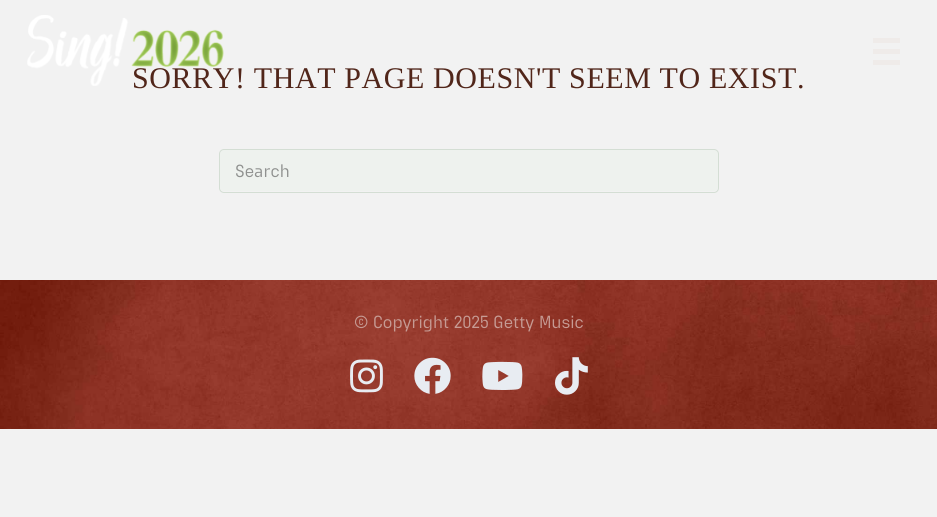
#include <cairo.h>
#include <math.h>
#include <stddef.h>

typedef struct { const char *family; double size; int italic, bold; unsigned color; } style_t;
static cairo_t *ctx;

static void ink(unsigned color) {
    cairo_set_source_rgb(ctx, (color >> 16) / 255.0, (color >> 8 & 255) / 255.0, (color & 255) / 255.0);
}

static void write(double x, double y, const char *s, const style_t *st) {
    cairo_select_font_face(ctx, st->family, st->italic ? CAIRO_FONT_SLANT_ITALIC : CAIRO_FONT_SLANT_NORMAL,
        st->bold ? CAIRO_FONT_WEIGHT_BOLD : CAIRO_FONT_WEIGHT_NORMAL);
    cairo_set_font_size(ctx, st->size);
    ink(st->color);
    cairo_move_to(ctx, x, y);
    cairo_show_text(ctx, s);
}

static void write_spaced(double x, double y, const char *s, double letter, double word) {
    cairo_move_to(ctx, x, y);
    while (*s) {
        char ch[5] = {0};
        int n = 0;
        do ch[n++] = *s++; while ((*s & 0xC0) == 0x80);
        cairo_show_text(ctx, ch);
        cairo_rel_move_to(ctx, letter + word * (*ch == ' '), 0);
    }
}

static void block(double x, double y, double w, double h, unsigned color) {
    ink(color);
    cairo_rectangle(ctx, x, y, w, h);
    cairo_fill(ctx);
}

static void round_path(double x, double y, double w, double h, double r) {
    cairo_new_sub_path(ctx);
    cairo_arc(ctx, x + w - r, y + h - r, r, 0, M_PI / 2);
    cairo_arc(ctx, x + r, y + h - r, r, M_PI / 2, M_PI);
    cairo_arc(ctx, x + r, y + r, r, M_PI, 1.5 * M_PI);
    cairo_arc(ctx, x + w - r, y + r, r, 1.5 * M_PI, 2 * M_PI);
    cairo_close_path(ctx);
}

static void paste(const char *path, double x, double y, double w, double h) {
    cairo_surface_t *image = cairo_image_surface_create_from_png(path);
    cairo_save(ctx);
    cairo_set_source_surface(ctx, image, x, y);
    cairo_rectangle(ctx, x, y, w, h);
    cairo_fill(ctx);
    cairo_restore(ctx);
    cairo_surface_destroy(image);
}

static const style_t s1 = {"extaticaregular", 17.5, 0, 0, 0x8f918f};
static const style_t s2 = {"extaticaregular", 17.5, 0, 0, 0xc69b94};

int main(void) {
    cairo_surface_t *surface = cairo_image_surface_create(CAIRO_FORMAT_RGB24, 937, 517);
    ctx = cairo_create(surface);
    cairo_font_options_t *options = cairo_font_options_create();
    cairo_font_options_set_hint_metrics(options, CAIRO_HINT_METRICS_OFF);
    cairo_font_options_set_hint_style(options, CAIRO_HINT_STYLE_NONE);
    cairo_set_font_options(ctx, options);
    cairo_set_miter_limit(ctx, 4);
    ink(0xf2f2f2);
    cairo_paint(ctx);
    cairo_select_font_face(ctx, "Liberation Serif", CAIRO_FONT_SLANT_NORMAL, CAIRO_FONT_WEIGHT_NORMAL);
    cairo_set_font_size(ctx, 30);
    ink(0x51261a);
    write_spaced(132, 88, "SORRY! THAT PAGE DOESN'T SEEM TO EXIST.", 0.6, 0);
    paste("pic1.png", 27, 15, 197, 71);
    block(873, 38, 27, 5, 0xefebe9);
    block(873, 49, 27, 5, 0xefebe9);
    block(873, 60, 27, 5, 0xefebe9);
    ink(0xeef2ee);
    round_path(220, 150, 498, 41, 4);
    cairo_fill(ctx);
    round_path(219.5, 149.5, 499, 43, 4.5);
    ink(0xd4ded4);
    cairo_set_line_width(ctx, 1);
    cairo_stroke(ctx);
    write(235, 177, "Search", &s1);
    paste("pic2.png", 0, 280, 937, 149);
    write(354, 328, "© Copyright 2025 Getty Music", &s2);
    paste("pic3.png", 350, 359, 33, 34);
    paste("pic4.png", 414, 357, 37, 37);
    paste("pic5.png", 482, 361, 41, 29);
    paste("pic6.png", 555, 357, 33, 38);
    cairo_surface_write_to_png(surface, "screenshot.png");
    cairo_font_options_destroy(options);
    cairo_destroy(ctx);
    cairo_surface_destroy(surface);
    return 0;
}
